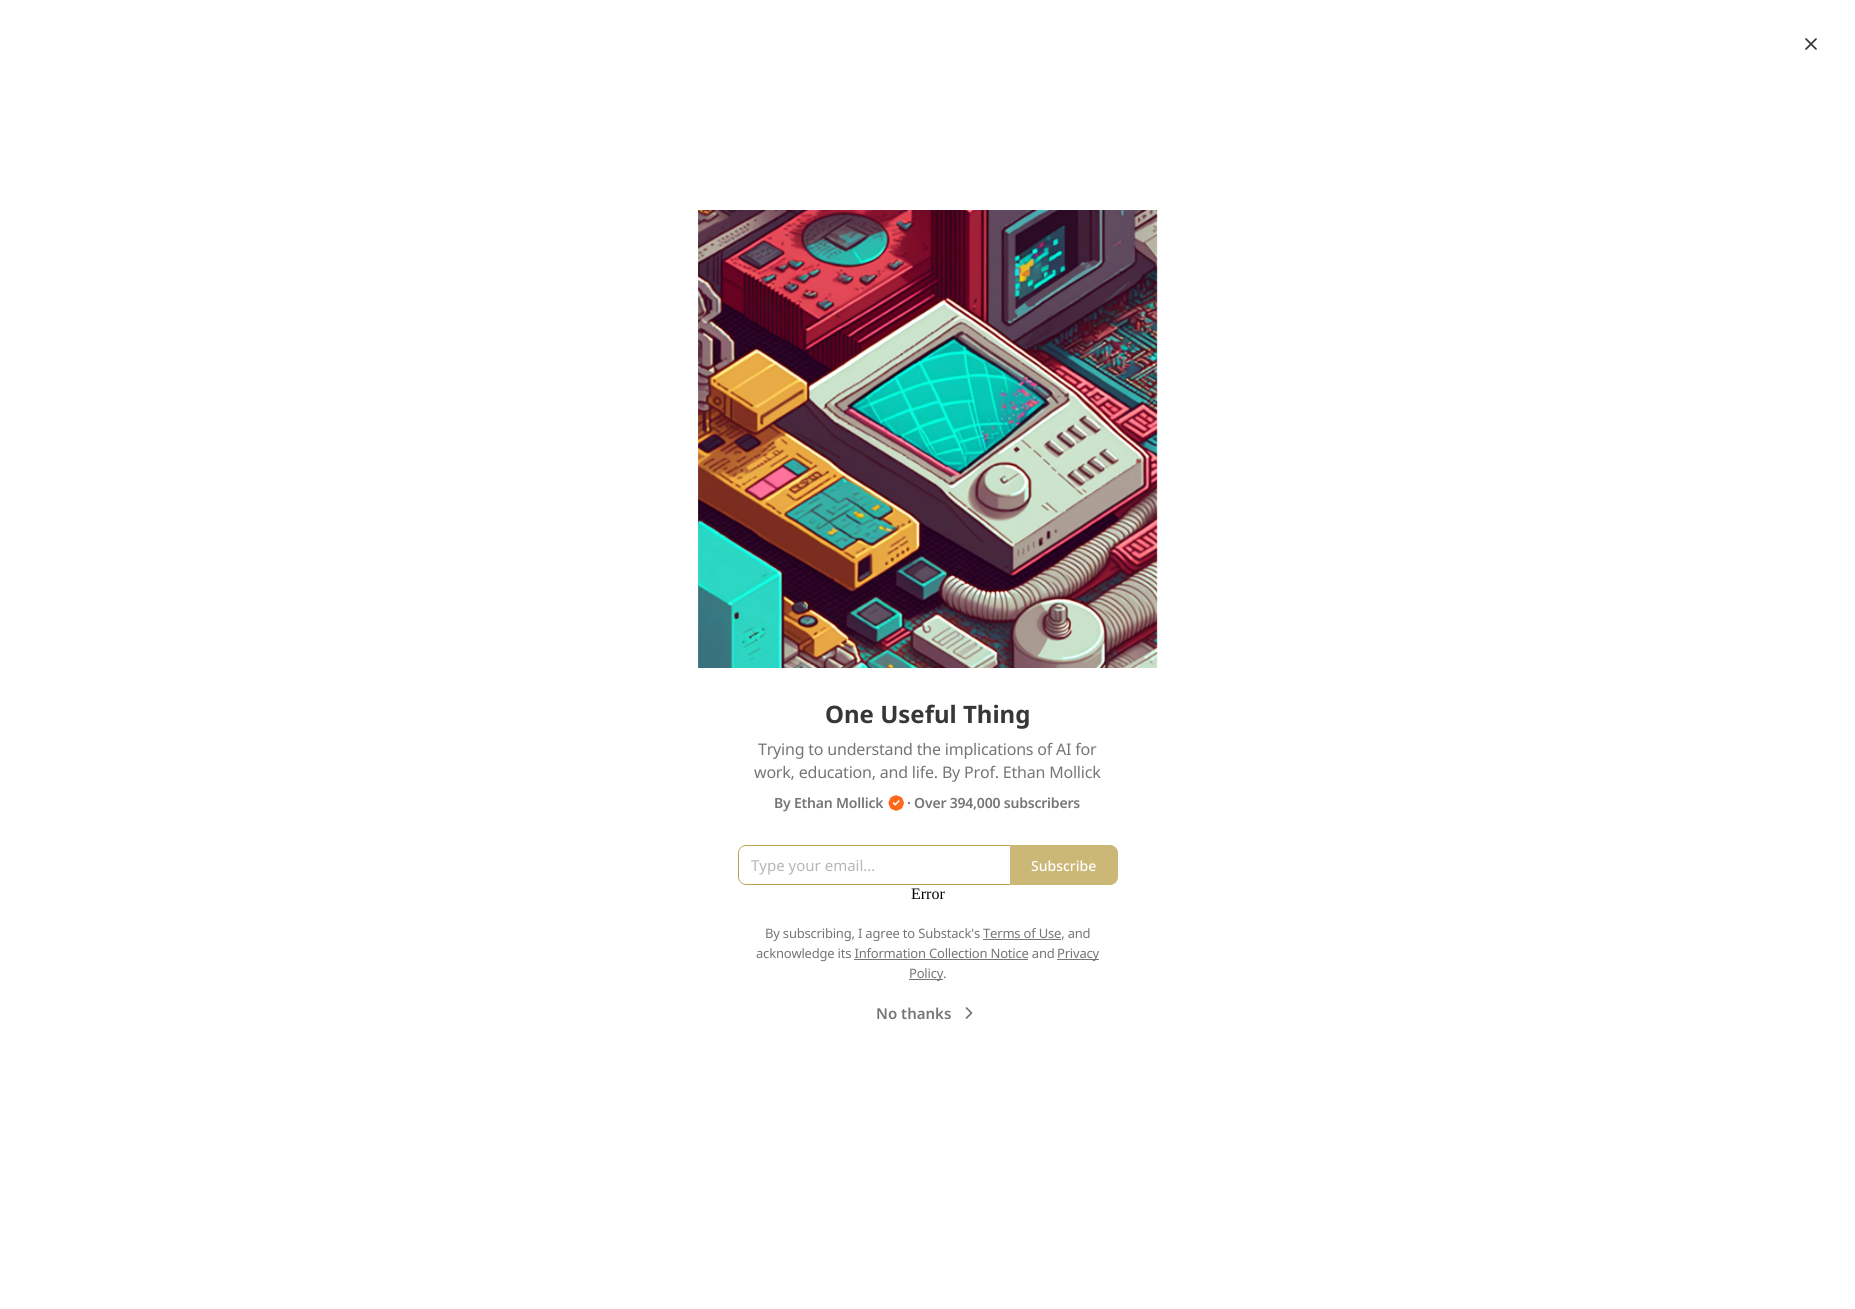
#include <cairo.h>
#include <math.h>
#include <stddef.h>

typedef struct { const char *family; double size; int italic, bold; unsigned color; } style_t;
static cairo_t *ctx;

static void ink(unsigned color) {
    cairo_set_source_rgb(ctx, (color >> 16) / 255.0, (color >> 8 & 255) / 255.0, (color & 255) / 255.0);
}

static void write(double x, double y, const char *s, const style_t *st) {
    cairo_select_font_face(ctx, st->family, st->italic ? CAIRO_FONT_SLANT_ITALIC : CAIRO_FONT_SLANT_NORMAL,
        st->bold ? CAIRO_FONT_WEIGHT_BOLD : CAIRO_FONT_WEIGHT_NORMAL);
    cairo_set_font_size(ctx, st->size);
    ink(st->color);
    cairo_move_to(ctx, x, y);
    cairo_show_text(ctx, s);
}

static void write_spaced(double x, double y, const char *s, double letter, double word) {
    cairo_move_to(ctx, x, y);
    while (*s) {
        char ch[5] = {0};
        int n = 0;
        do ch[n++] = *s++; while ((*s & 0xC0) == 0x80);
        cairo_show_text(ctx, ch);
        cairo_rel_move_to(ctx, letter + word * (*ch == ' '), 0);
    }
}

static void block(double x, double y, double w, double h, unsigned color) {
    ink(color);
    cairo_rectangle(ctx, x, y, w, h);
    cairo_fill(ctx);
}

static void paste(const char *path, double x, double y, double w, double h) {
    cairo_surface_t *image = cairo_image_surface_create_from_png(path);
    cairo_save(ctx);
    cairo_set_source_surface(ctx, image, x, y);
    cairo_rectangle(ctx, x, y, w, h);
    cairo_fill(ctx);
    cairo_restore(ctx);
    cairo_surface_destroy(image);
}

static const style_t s1 = {"Noto Sans", 24, 0, 1, 0x363737};
static const style_t s2 = {"Noto Sans", 15, 0, 0, 0xb6b6b6};
static const style_t s3 = {"Noto Sans Medium", 14, 0, 0, 0xffffff};
static const style_t s4 = {"Liberation Serif", 16, 0, 0, 0x000000};
static const style_t s5 = {"Noto Sans SemiBold", 15, 0, 0, 0x757575};

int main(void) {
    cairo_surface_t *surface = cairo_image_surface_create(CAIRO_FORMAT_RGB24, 1855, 1309);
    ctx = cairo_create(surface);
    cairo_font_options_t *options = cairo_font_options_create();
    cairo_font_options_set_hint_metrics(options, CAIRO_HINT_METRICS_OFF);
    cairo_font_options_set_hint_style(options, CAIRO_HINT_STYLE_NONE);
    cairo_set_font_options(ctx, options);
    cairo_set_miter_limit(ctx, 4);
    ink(0xffffff);
    cairo_paint(ctx);
    cairo_new_path(ctx);
    cairo_move_to(ctx, 1816, 39);
    cairo_line_to(ctx, 1806, 49);
    cairo_move_to(ctx, 1806, 39);
    cairo_line_to(ctx, 1816, 49);
    ink(0x363737);
    cairo_set_line_width(ctx, 1.7);
    cairo_set_line_cap(ctx, CAIRO_LINE_CAP_ROUND);
    cairo_set_line_join(ctx, CAIRO_LINE_JOIN_ROUND);
    cairo_stroke(ctx);
    paste("pic1.png", 698, 210, 460, 458);
    write(825, 723, "One Useful Thing", &s1);
    cairo_select_font_face(ctx, "Noto Sans", CAIRO_FONT_SLANT_NORMAL, CAIRO_FONT_WEIGHT_NORMAL);
    cairo_set_font_size(ctx, 16);
    ink(0x757575);
    write_spaced(758, 755, "Trying to understand the implications of AI for", -0.2, 0);
    write_spaced(754, 778, "work, education, and life. By Prof. Ethan Mollick", -0.2, 0);
    cairo_select_font_face(ctx, "Noto Sans SemiBold", CAIRO_FONT_SLANT_NORMAL, CAIRO_FONT_WEIGHT_NORMAL);
    cairo_set_font_size(ctx, 14);
    write_spaced(774, 808, "By Ethan Mollick", -0.2, 0);
    paste("pic2.png", 888, 795, 16, 16);
    write_spaced(907, 808, "· Over 394,000 subscribers", -0.2, 0);
    ink(0xbaa049);
    cairo_set_fill_rule(ctx, CAIRO_FILL_RULE_EVEN_ODD);
    cairo_new_path(ctx);
    cairo_move_to(ctx, 746, 845);
    cairo_line_to(ctx, 1010, 845);
    cairo_line_to(ctx, 1010, 885);
    cairo_line_to(ctx, 746, 885);
    cairo_curve_to(ctx, 742, 885, 738, 881, 738, 877);
    cairo_line_to(ctx, 738, 853);
    cairo_curve_to(ctx, 738, 849, 742, 845, 746, 845);
    cairo_close_path(ctx);
    cairo_move_to(ctx, 746, 846);
    cairo_line_to(ctx, 1010, 846);
    cairo_line_to(ctx, 1010, 884);
    cairo_line_to(ctx, 746, 884);
    cairo_curve_to(ctx, 742, 884, 739, 881, 739, 877);
    cairo_line_to(ctx, 739, 853);
    cairo_curve_to(ctx, 739, 849, 742, 846, 746, 846);
    cairo_close_path(ctx);
    cairo_fill(ctx);
    write(751, 871, "Type your email...", &s2);
    ink(0xcbb877);
    cairo_new_path(ctx);
    cairo_move_to(ctx, 1010.5, 845.5);
    cairo_line_to(ctx, 1110, 845.5);
    cairo_curve_to(ctx, 1114, 845.5, 1117.5, 849, 1117.5, 853);
    cairo_line_to(ctx, 1117.5, 877);
    cairo_curve_to(ctx, 1117.5, 881, 1114, 884.5, 1110, 884.5);
    cairo_line_to(ctx, 1010.5, 884.5);
    cairo_close_path(ctx);
    cairo_fill_preserve(ctx);
    cairo_set_line_width(ctx, 1);
    cairo_set_line_cap(ctx, CAIRO_LINE_CAP_BUTT);
    cairo_set_line_join(ctx, CAIRO_LINE_JOIN_MITER);
    cairo_stroke(ctx);
    write(1031, 871, "Subscribe", &s3);
    write(911, 899, "Error", &s4);
    cairo_select_font_face(ctx, "Noto Sans", CAIRO_FONT_SLANT_NORMAL, CAIRO_FONT_WEIGHT_NORMAL);
    cairo_set_font_size(ctx, 13);
    ink(0x757575);
    write_spaced(765, 938, "By subscribing, I agree to Substack's Terms of Use, and", -0.2, 0);
    block(983, 939, 78, 1, 0x777777);
    ink(0x757575);
    write_spaced(756, 958, "acknowledge its Information Collection Notice and", -0.2, 0);
    block(1057, 959, 42, 1, 0x777777);
    ink(0x757575);
    write_spaced(1057, 958, "Privacy", -0.2, 0);
    block(854, 959, 174, 1, 0x777777);
    block(909, 979, 34, 1, 0x777777);
    ink(0x757575);
    write_spaced(909, 978, "Policy.", -0.2, 0);
    write(876, 1019, "No thanks", &s5);
    cairo_new_path(ctx);
    cairo_move_to(ctx, 966.5, 1018);
    cairo_line_to(ctx, 971.5, 1013);
    cairo_line_to(ctx, 966.5, 1008);
    cairo_set_line_width(ctx, 1.7);
    cairo_set_line_cap(ctx, CAIRO_LINE_CAP_ROUND);
    cairo_set_line_join(ctx, CAIRO_LINE_JOIN_ROUND);
    cairo_stroke(ctx);
    cairo_surface_write_to_png(surface, "screenshot.png");
    cairo_font_options_destroy(options);
    cairo_destroy(ctx);
    cairo_surface_destroy(surface);
    return 0;
}
